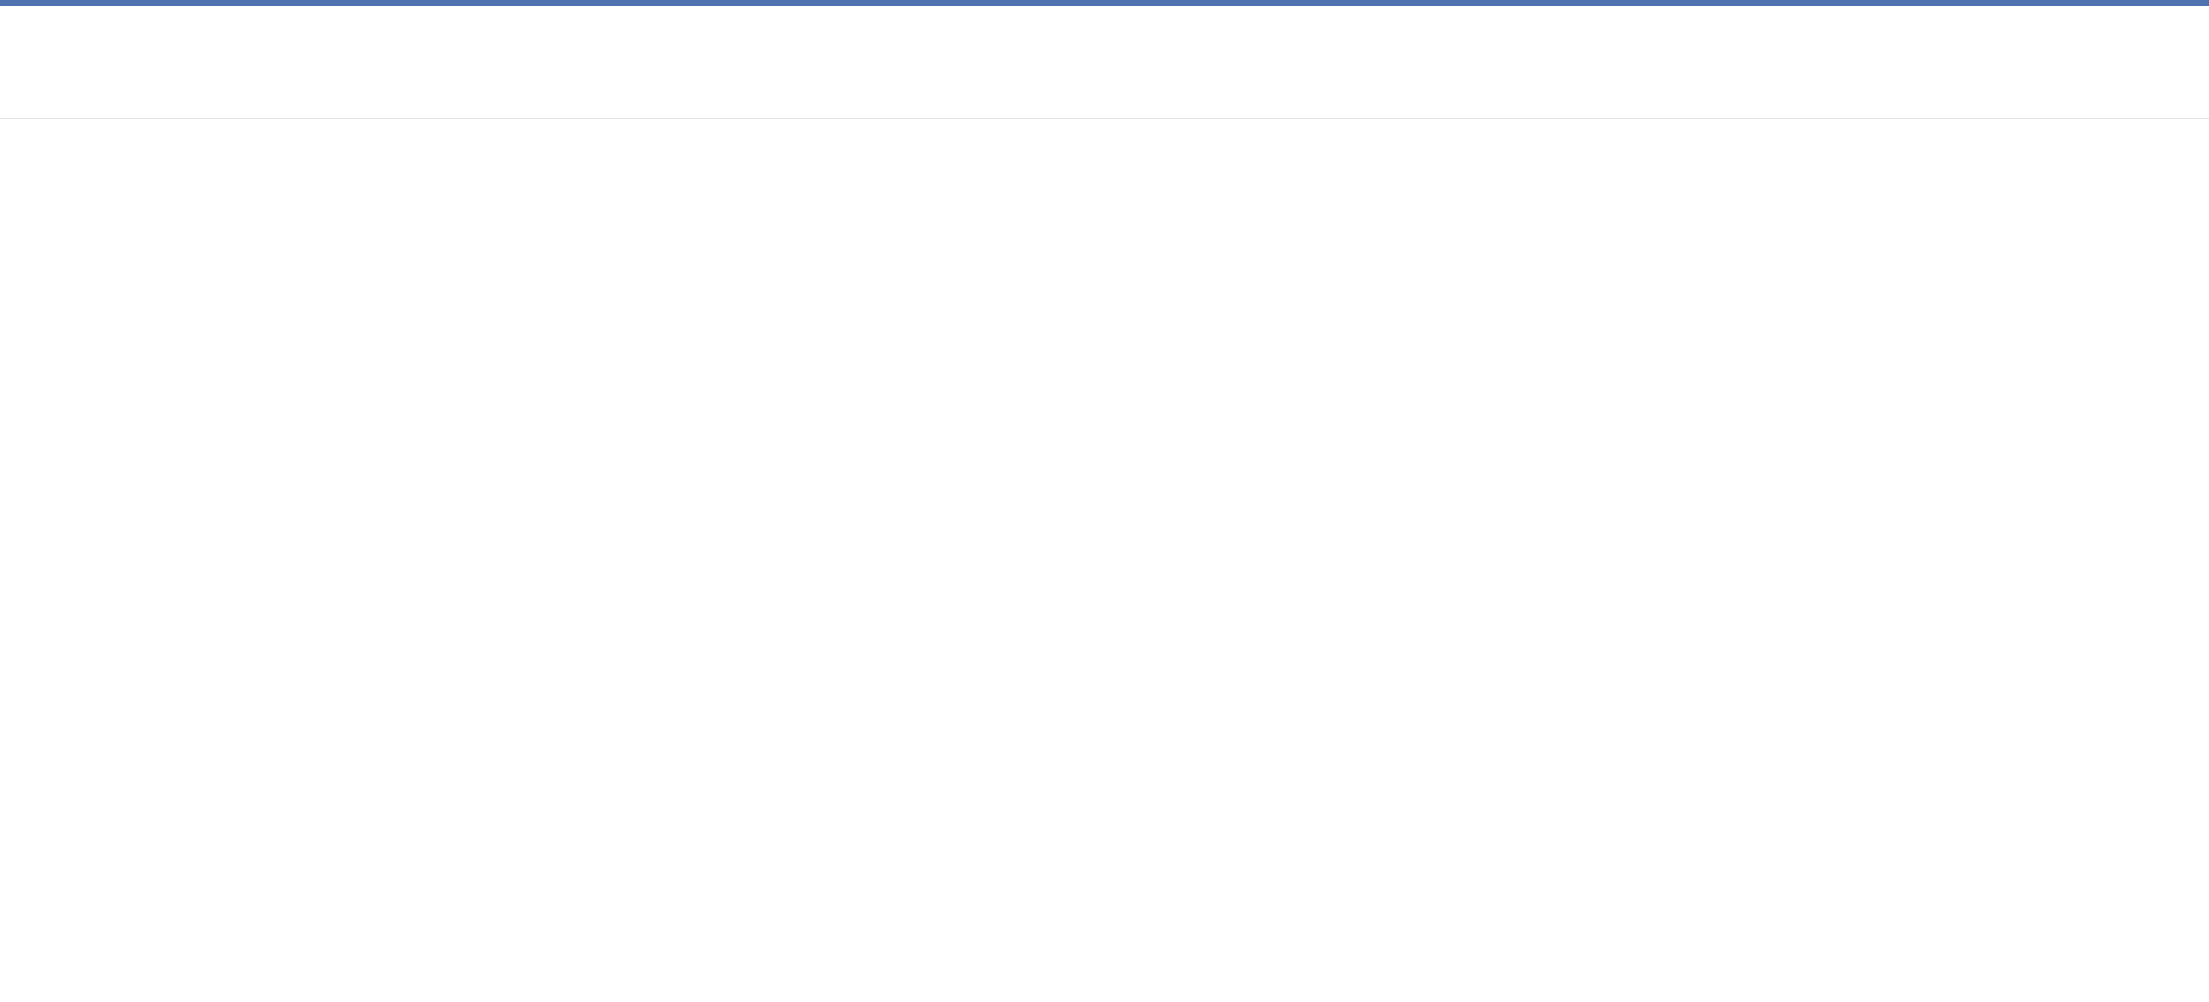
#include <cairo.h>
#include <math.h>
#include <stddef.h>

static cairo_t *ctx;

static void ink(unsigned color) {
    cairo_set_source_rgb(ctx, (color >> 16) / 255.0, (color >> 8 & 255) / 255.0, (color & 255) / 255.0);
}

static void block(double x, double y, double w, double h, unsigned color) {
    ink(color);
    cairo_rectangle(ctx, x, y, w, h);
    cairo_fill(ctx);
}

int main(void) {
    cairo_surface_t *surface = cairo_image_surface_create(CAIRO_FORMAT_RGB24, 2209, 1002);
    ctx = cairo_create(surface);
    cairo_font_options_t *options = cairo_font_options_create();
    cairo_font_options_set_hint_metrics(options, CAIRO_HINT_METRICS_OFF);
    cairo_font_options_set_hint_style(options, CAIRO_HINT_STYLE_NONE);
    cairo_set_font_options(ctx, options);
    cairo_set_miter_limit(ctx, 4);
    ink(0xffffff);
    cairo_paint(ctx);
    block(0, 0, 2209, 6, 0x4f73af);
    block(0, 118, 2209, 1, 0xe5e5e6);
    cairo_surface_write_to_png(surface, "screenshot.png");
    cairo_font_options_destroy(options);
    cairo_destroy(ctx);
    cairo_surface_destroy(surface);
    return 0;
}
